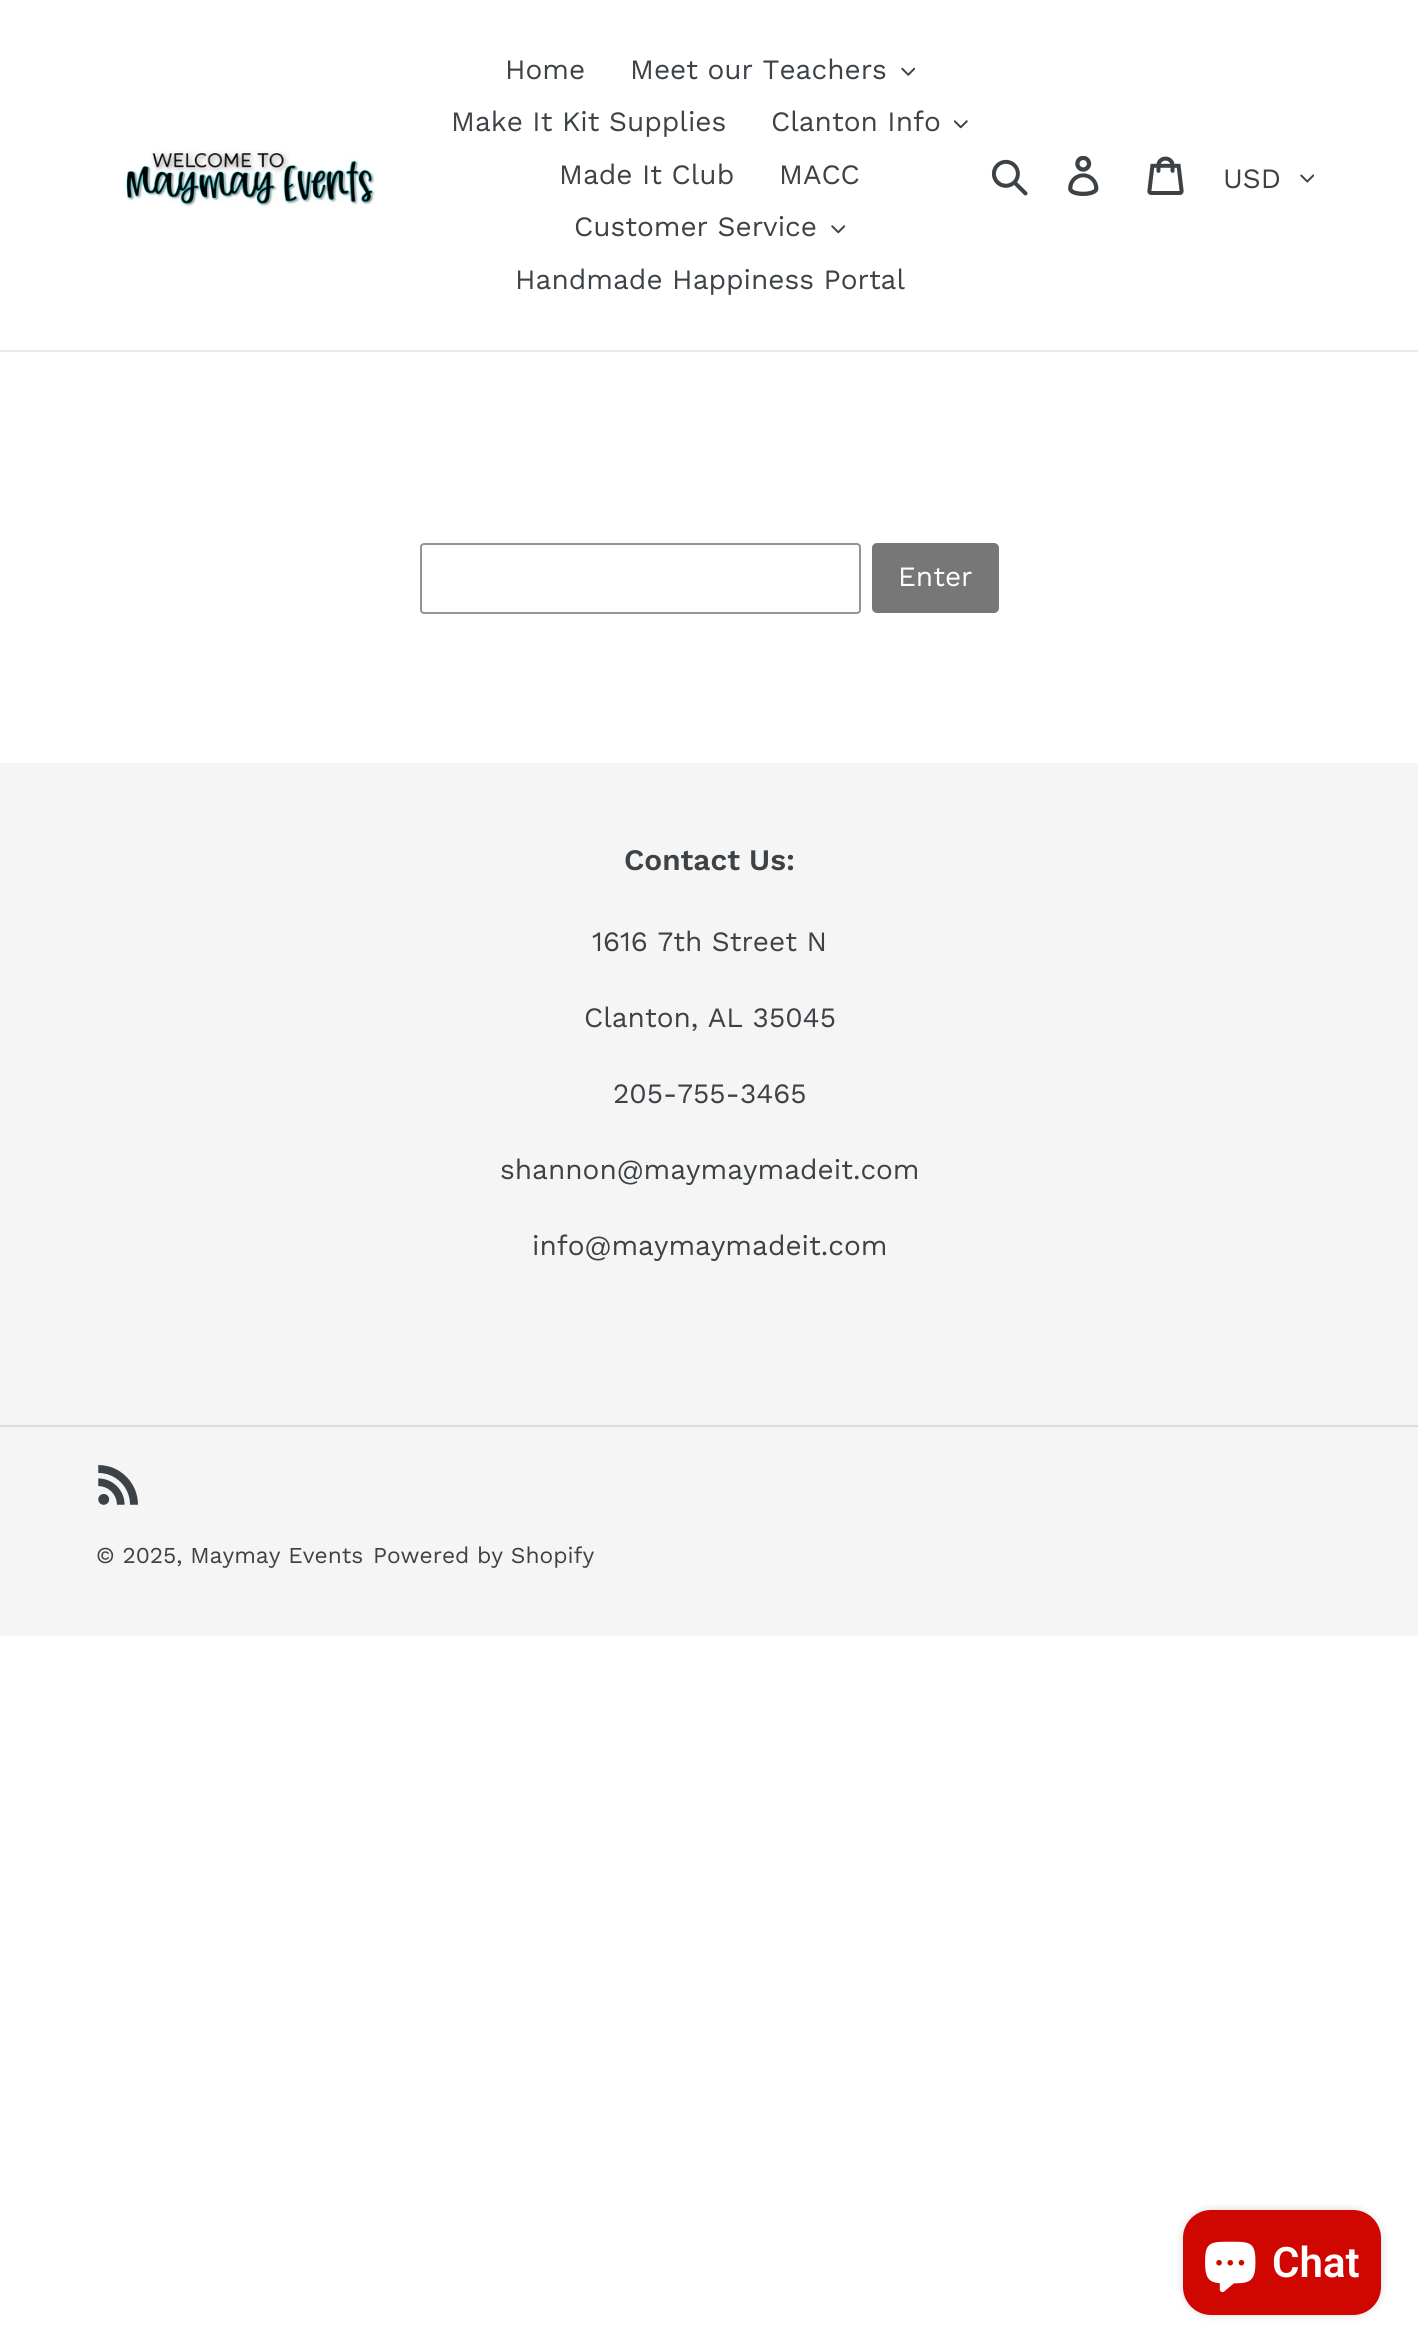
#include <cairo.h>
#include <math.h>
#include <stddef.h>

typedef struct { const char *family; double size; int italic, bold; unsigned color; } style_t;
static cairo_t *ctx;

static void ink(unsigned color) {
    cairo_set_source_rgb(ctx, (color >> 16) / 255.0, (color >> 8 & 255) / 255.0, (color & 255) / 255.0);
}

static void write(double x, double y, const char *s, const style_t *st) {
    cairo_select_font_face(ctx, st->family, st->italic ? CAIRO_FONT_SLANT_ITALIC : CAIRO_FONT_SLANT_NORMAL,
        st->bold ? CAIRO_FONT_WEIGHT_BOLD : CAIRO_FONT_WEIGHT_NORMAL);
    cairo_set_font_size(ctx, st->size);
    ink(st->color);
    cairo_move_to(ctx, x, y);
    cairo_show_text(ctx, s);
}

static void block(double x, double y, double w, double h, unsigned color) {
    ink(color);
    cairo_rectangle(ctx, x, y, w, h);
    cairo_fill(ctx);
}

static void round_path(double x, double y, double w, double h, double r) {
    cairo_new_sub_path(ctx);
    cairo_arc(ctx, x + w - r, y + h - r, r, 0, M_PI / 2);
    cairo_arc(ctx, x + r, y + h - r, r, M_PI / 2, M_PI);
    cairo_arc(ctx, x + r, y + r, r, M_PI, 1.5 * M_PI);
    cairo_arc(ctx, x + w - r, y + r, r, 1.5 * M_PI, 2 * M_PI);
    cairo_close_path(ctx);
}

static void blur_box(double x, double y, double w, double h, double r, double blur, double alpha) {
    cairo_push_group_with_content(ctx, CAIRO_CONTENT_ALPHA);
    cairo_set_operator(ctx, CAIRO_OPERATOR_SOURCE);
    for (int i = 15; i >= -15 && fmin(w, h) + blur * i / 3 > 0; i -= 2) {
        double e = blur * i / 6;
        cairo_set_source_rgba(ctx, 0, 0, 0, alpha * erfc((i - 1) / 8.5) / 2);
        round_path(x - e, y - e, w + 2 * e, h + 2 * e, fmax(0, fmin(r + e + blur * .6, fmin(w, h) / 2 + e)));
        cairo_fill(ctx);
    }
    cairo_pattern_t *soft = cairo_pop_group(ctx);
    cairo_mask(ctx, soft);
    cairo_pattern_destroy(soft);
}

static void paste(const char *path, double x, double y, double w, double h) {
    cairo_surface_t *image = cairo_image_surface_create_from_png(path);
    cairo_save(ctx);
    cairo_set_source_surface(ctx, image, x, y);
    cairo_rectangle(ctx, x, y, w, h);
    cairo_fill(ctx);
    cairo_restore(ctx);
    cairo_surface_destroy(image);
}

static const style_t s1 = {"Work Sans", 28, 0, 0, 0x3d4246};
static const style_t s2 = {"Work Sans", 28, 0, 0, 0xffffff};
static const style_t s3 = {"Work Sans SemiBold", 29.75, 0, 0, 0x3d4246};
static const style_t s4 = {"Work Sans", 22.75, 0, 0, 0x3d4246};
static const style_t s5 = {"Roboto SemiBold", 42, 0, 0, 0xffffff};

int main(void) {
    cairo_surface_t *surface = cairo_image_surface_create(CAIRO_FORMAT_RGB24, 1418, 2352);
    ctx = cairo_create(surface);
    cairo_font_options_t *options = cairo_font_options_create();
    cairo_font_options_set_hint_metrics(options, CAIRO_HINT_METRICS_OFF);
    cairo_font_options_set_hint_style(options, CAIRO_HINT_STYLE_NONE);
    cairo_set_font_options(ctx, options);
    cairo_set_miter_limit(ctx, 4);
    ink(0xffffff);
    cairo_paint(ctx);
    block(0, 350, 1418, 2, 0xe8e9eb);
    paste("pic1.png", 124, 150, 251, 57);
    write(505, 79, "Home", &s1);
    write(630, 79, "Meet our Teachers", &s1);
    paste("pic2.png", 901, 67, 14, 9);
    write(451, 131, "Make It Kit Supplies", &s1);
    write(771, 131, "Clanton Info", &s1);
    paste("pic3.png", 954, 120, 14, 9);
    write(559, 184, "Made It Club", &s1);
    write(779, 184, "MACC", &s1);
    write(574, 236, "Customer Service", &s1);
    paste("pic4.png", 831, 225, 14, 9);
    write(515, 289, "Handmade Happiness Portal", &s1);
    paste("pic5.png", 991, 159, 37, 37);
    paste("pic6.png", 1068, 156, 31, 40);
    paste("pic7.png", 1147, 156, 37, 39);
    write(1223, 188, "USD", &s1);
    paste("pic8.png", 1300, 174, 14, 9);
    round_path(421, 544, 439, 69, 3);
    ink(0x949494);
    cairo_stroke(ctx);
    ink(0x777777);
    round_path(872, 543, 127, 70, 5);
    cairo_fill(ctx);
    write(898, 586, "Enter", &s2);
    block(0, 763, 1418, 873, 0xf5f5f5);
    write(624, 870, "Contact Us:", &s3);
    write(592, 951, "1616 7th Street N", &s1);
    write(584, 1027, "Clanton, AL 35045", &s1);
    write(613, 1103, "205-755-3465", &s1);
    write(500, 1179, "shannon@maymaymadeit.com", &s1);
    write(532, 1255, "info@maymaymadeit.com", &s1);
    block(0, 1425, 1418, 2, 0xdcdcdc);
    paste("pic9.png", 98, 1465, 40, 40);
    write(96, 1563, "© 2025, Maymay Events", &s4);
    write(373, 1563, "Powered by Shopify", &s4);
    ink(0x000000);
    blur_box(1183, 2210, 198, 105, 28, 4.5, 0.15);
    ink(0xd00700);
    round_path(1183, 2210, 198, 105, 28);
    cairo_fill(ctx);
    paste("pic10.png", 1205, 2241, 51, 52);
    write(1272, 2277, "Chat", &s5);
    cairo_surface_write_to_png(surface, "screenshot.png");
    cairo_font_options_destroy(options);
    cairo_destroy(ctx);
    cairo_surface_destroy(surface);
    return 0;
}
